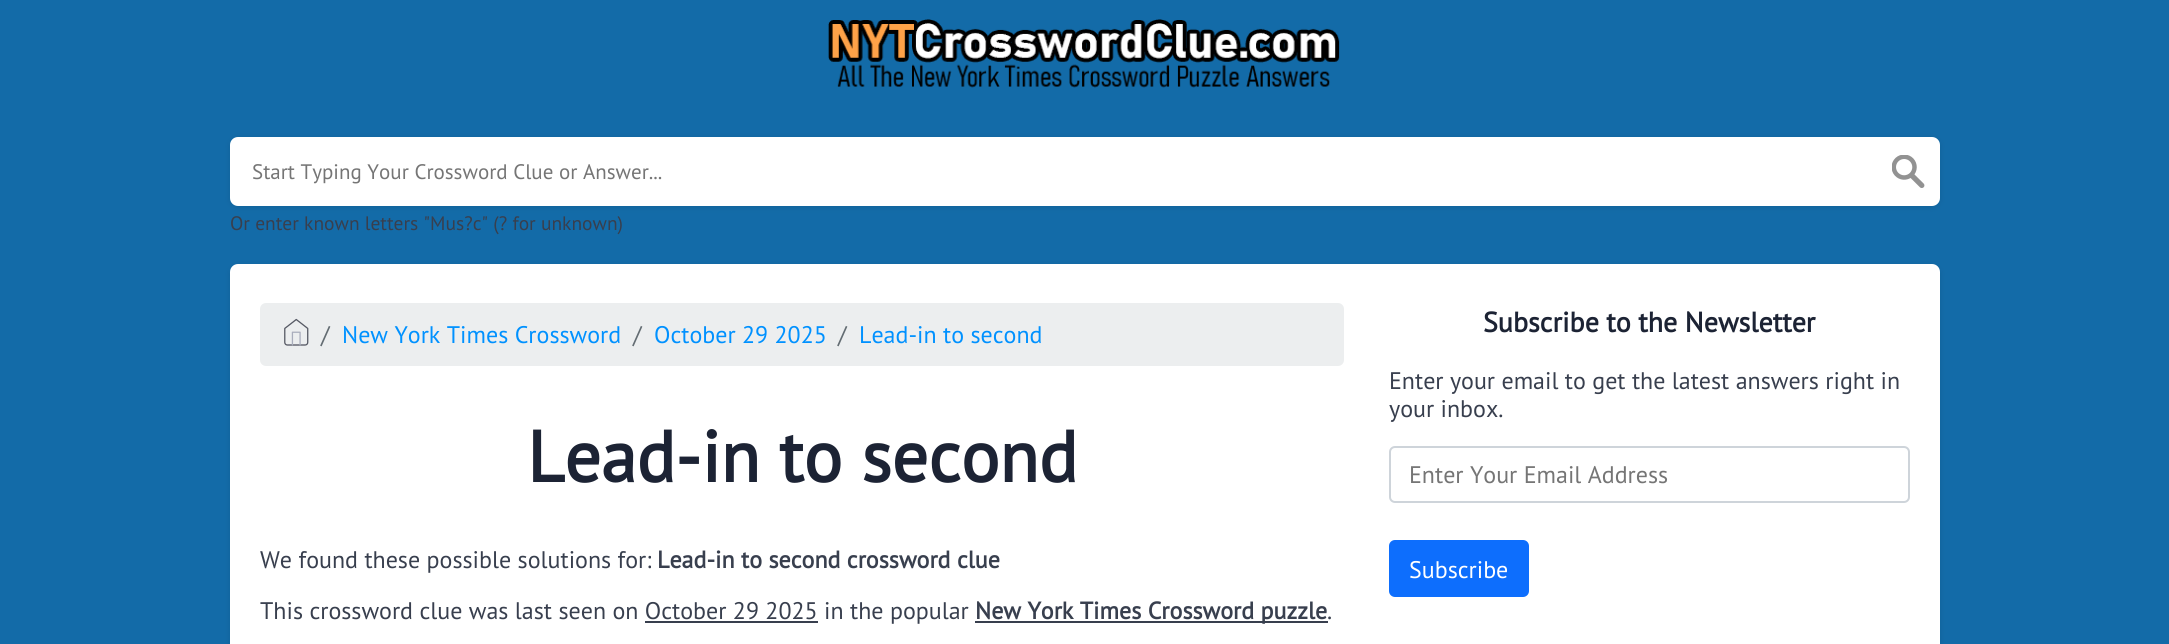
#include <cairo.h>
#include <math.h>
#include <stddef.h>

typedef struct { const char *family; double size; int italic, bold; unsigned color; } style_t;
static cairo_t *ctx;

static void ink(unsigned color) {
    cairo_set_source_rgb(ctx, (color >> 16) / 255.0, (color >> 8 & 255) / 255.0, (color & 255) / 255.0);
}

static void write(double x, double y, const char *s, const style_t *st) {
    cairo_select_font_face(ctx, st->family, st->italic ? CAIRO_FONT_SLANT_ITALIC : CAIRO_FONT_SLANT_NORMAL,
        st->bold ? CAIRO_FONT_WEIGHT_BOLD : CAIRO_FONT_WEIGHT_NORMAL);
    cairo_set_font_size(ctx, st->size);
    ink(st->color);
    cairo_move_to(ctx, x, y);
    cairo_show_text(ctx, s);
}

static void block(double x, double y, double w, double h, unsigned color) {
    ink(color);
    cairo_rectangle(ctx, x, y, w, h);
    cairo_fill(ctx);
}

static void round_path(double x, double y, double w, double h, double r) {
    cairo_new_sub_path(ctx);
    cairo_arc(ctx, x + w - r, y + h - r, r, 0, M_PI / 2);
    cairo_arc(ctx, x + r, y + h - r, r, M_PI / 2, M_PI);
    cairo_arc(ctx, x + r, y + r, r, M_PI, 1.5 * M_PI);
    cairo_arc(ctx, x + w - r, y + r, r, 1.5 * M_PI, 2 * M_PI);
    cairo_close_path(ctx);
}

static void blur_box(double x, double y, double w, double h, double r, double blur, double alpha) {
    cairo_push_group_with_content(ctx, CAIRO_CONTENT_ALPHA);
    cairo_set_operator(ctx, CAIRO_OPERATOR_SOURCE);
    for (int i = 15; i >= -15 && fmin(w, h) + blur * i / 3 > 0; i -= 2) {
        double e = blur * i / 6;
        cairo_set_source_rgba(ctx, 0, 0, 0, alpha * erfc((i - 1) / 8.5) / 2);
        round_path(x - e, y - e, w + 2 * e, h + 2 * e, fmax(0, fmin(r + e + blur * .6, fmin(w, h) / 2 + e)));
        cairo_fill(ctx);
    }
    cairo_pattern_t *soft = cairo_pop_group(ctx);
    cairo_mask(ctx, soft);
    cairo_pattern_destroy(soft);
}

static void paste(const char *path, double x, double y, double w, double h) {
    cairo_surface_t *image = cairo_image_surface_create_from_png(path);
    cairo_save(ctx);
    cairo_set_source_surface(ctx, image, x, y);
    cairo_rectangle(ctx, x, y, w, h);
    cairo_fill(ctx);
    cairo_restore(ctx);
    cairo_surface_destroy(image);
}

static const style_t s1 = {"PT Sans", 21, 0, 0, 0x757575};
static const style_t s2 = {"PT Sans", 19.5, 0, 0, 0x383f4e};
static const style_t s3 = {"PT Sans", 24, 0, 0, 0x636c72};
static const style_t s4 = {"PT Sans", 24, 0, 0, 0x0091ff};
static const style_t s5 = {"PT Sans", 72, 0, 1, 0x1c2334};
static const style_t s6 = {"PT Sans", 24, 0, 0, 0x383f4e};
static const style_t s7 = {"PT Sans", 24, 0, 1, 0x383f4e};
static const style_t s8 = {"PT Sans", 28, 0, 1, 0x1c2334};
static const style_t s9 = {"PT Sans", 24, 0, 0, 0x757575};
static const style_t s10 = {"PT Sans", 24, 0, 0, 0xffffff};

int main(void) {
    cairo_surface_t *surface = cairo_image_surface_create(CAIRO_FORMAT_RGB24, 2169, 644);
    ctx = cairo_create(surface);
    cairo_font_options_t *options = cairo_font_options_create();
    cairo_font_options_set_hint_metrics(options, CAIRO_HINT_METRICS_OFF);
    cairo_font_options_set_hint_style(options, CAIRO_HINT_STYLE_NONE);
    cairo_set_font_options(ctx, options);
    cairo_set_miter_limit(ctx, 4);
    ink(0x136ba8);
    cairo_paint(ctx);
    paste("pic1.png", 828, 19, 512, 69);
    ink(0x000000);
    blur_box(230, 138, 1710, 69, 8, 3, 0.1);
    ink(0xffffff);
    round_path(230, 137, 1710, 69, 8);
    cairo_fill(ctx);
    write(252, 179, "Start Typing Your Crossword Clue or Answer...", &s1);
    paste("pic2.png", 1892, 155, 33, 33);
    write(230, 230, "Or enter known letters \"Mus?c\" (? for unknown)", &s2);
    ink(0x000000);
    blur_box(230, 266, 1710, 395, 8, 3, 0.1);
    ink(0xffffff);
    round_path(230, 264, 1710, 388, 8);
    cairo_fill(ctx);
    ink(0xeceeef);
    round_path(260, 303, 1084, 63, 6);
    cairo_fill(ctx);
    paste("pic3.png", 284, 318, 25, 28);
    write(321, 343, "/", &s3);
    write(342, 343, "New York Times Crossword", &s4);
    write(633, 343, "/", &s3);
    write(654, 343, "October 29 2025", &s4);
    write(838, 343, "/", &s3);
    write(859, 343, "Lead-in to second", &s4);
    write(527, 482, "Lead-in to second", &s5);
    write(260, 568, "We found these possible solutions for:", &s6);
    write(657, 568, "Lead-in to second crossword clue", &s7);
    write(260, 619, "This crossword clue was last seen on October 29 2025 in the popular", &s6);
    block(975, 621, 353, 2, 0x383f4e);
    write(975, 619, "New York Times Crossword puzzle", &s7);
    write(1327, 619, ".", &s6);
    block(645, 621, 173, 2, 0x383f4e);
    write(1483, 332, "Subscribe to the Newsletter", &s8);
    write(1389, 389, "Enter your email to get the latest answers right in", &s6);
    write(1389, 417, "your inbox.", &s6);
    round_path(1390, 447, 519, 55, 5);
    ink(0xced4da);
    cairo_stroke(ctx);
    write(1409, 483, "Enter Your Email Address", &s9);
    ink(0x0d6efd);
    round_path(1390, 541, 138, 55, 5);
    cairo_fill_preserve(ctx);
    cairo_stroke(ctx);
    write(1409, 578, "Subscribe", &s10);
    cairo_surface_write_to_png(surface, "screenshot.png");
    cairo_font_options_destroy(options);
    cairo_destroy(ctx);
    cairo_surface_destroy(surface);
    return 0;
}
